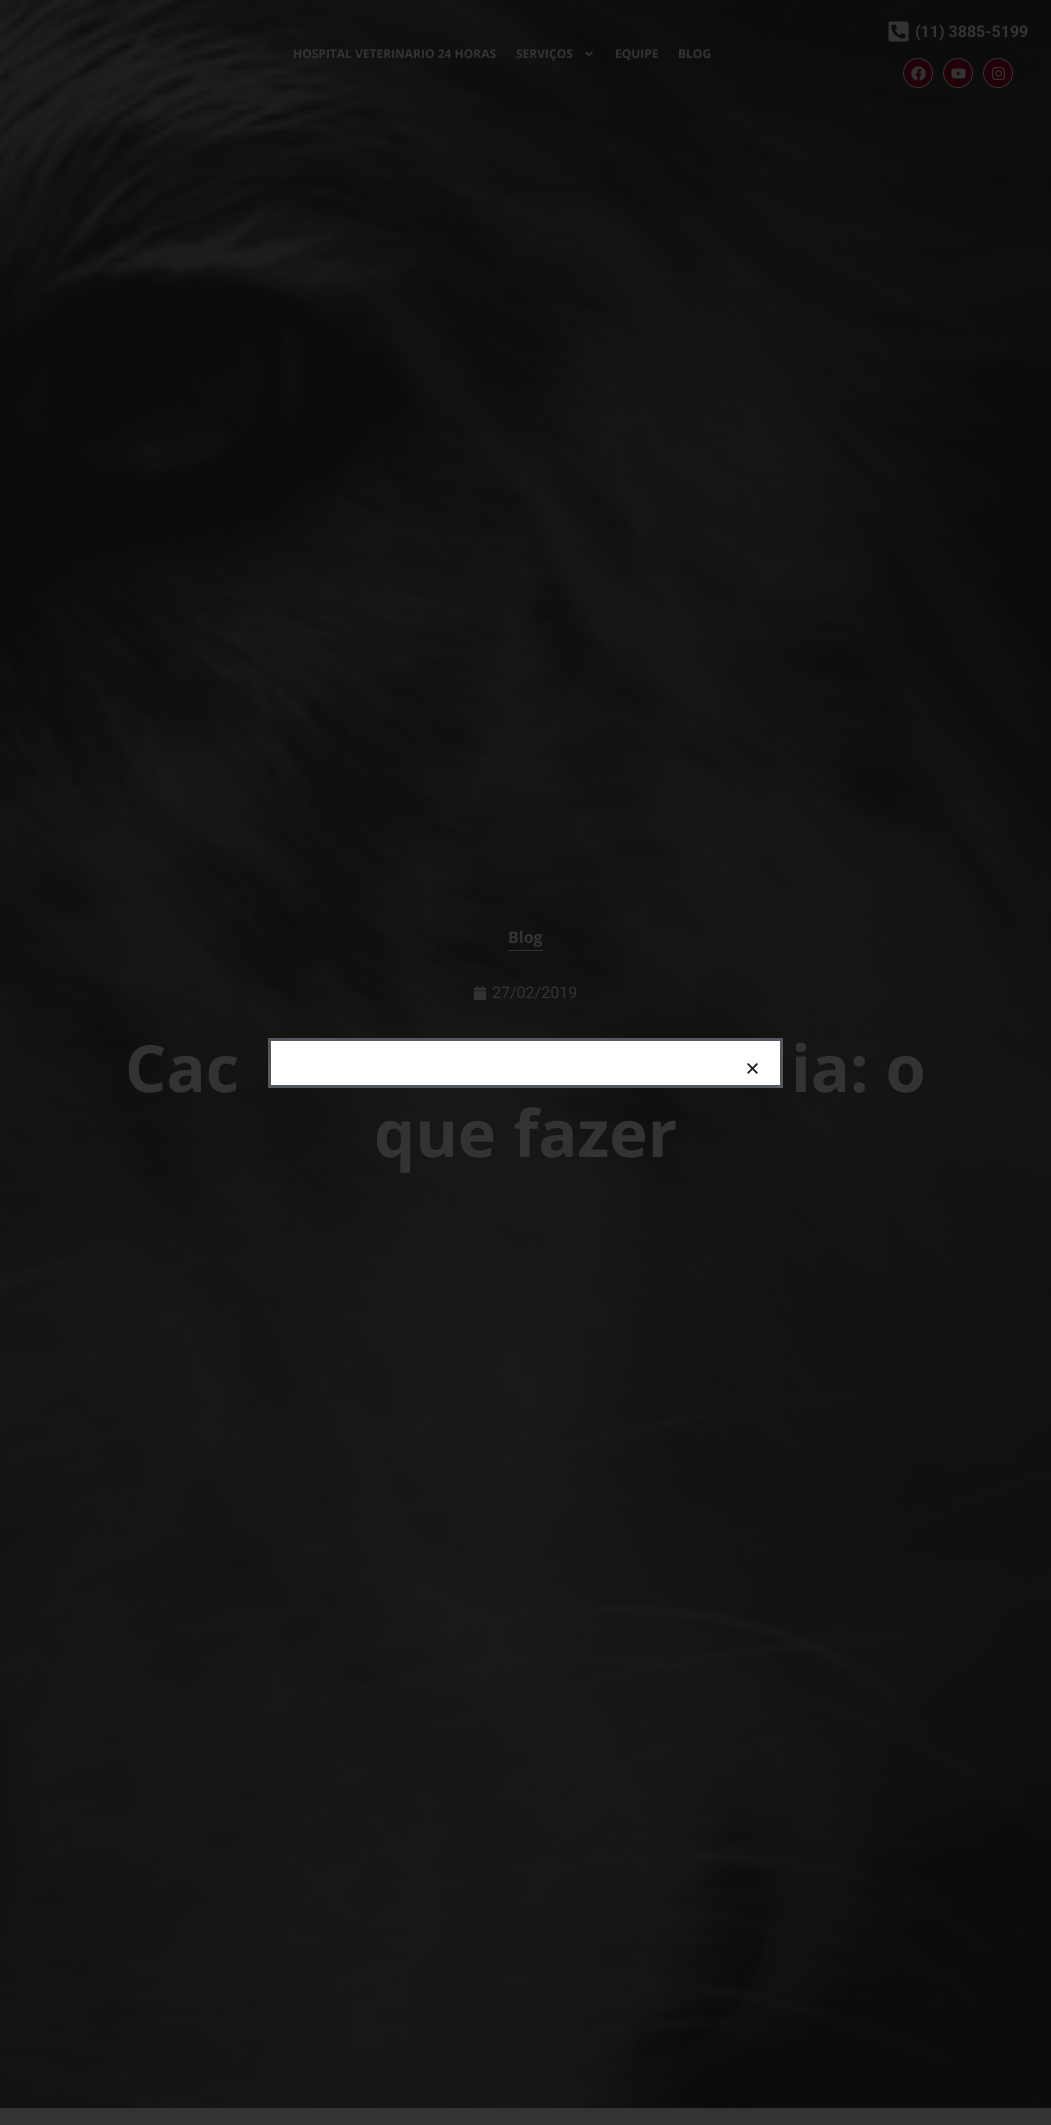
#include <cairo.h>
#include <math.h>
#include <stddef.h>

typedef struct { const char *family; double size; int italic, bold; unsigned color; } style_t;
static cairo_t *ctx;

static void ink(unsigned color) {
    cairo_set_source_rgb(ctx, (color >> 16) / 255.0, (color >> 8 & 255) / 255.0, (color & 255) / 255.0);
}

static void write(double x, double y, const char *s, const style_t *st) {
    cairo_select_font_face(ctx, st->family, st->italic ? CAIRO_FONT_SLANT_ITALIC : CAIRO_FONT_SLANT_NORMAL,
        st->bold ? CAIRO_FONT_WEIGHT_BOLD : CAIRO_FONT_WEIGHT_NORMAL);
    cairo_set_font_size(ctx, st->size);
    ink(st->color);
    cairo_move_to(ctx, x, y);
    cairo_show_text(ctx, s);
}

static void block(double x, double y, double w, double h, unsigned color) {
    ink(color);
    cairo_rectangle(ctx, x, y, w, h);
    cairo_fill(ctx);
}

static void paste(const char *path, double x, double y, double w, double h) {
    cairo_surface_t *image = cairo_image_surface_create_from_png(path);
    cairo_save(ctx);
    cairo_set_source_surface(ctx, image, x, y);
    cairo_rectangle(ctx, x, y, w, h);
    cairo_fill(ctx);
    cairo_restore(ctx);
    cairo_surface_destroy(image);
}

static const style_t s1 = {"Roboto", 16, 0, 1, 0x333333};
static const style_t s2 = {"Open Sans", 12, 0, 1, 0x333333};
static const style_t s3 = {"Open Sans", 16, 0, 1, 0x333333};
static const style_t s4 = {"Roboto", 16, 0, 0, 0x333333};
static const style_t s5 = {"Open Sans", 65, 0, 1, 0x333333};

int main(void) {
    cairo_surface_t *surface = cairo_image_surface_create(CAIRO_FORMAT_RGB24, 1051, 2125);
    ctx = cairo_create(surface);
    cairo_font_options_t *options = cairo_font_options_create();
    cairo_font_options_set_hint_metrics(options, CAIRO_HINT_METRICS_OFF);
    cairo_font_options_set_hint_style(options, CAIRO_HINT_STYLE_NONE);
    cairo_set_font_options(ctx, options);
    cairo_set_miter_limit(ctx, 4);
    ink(0x333333);
    cairo_paint(ctx);
    paste("pic6.png", 0, 0, 1051, 2108);
    paste("pic1.png", 888, 21, 21, 21);
    write(915, 37, "(11) 3885-5199", &s1);
    ink(0x220007);
    cairo_new_path(ctx);
    cairo_arc(ctx, 918, 73, 14.5, 0, 2 * M_PI);
    cairo_fill_preserve(ctx);
    ink(0x333333);
    cairo_set_line_width(ctx, 1);
    cairo_stroke(ctx);
    paste("pic2.png", 911, 66, 15, 15);
    ink(0x220007);
    cairo_arc(ctx, 958, 73, 14.5, 0, 2 * M_PI);
    cairo_fill_preserve(ctx);
    ink(0x333333);
    cairo_stroke(ctx);
    paste("pic3.png", 951, 68, 15, 11);
    ink(0x220007);
    cairo_arc(ctx, 998, 73, 14.5, 0, 2 * M_PI);
    cairo_fill_preserve(ctx);
    ink(0x333333);
    cairo_stroke(ctx);
    paste("pic4.png", 992, 67, 14, 13);
    write(293, 58, "HOSPITAL VETERINARIO 24 HORAS", &s2);
    write(516, 58, "SERVIÇOS", &s2);
    paste("pic5.png", 585, 51, 8, 6);
    write(615, 58, "EQUIPE", &s2);
    write(678, 58, "BLOG", &s2);
    block(508, 950, 35, 1, 0x333333);
    write(508, 943, "Blog", &s3);
    paste("pic7.png", 473, 986, 14, 14);
    write(492, 998, "27/02/2019", &s4);
    write(125, 1092, "Cac", &s5);
    write(791, 1092, "ia: o", &s5);
    write(374, 1157, "que fazer", &s5);
    ink(0xffffff);
    cairo_rectangle(ctx, 269.5, 1039.5, 512, 47);
    cairo_fill_preserve(ctx);
    ink(0x54595f);
    cairo_set_line_width(ctx, 3);
    cairo_stroke(ctx);
    paste("pic8.png", 747, 1063, 11, 11);
    cairo_surface_write_to_png(surface, "screenshot.png");
    cairo_font_options_destroy(options);
    cairo_destroy(ctx);
    cairo_surface_destroy(surface);
    return 0;
}
